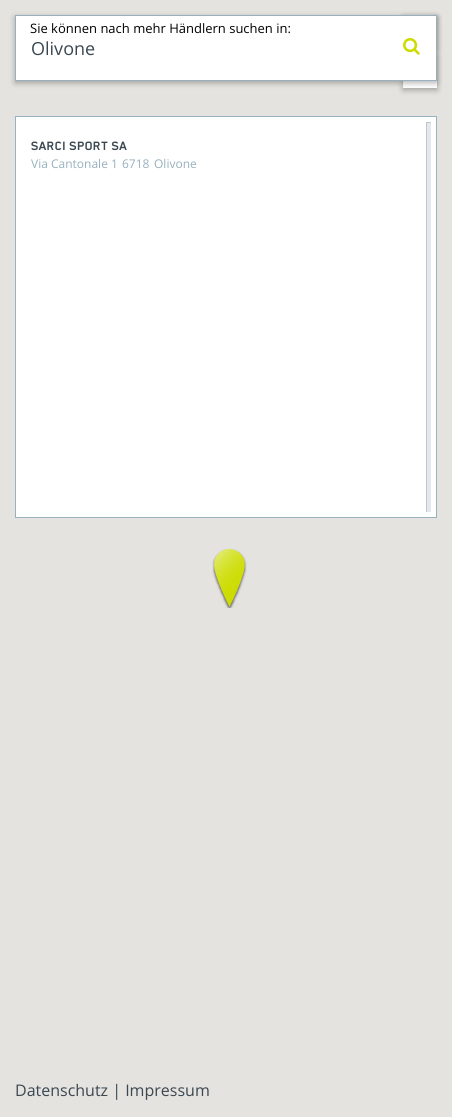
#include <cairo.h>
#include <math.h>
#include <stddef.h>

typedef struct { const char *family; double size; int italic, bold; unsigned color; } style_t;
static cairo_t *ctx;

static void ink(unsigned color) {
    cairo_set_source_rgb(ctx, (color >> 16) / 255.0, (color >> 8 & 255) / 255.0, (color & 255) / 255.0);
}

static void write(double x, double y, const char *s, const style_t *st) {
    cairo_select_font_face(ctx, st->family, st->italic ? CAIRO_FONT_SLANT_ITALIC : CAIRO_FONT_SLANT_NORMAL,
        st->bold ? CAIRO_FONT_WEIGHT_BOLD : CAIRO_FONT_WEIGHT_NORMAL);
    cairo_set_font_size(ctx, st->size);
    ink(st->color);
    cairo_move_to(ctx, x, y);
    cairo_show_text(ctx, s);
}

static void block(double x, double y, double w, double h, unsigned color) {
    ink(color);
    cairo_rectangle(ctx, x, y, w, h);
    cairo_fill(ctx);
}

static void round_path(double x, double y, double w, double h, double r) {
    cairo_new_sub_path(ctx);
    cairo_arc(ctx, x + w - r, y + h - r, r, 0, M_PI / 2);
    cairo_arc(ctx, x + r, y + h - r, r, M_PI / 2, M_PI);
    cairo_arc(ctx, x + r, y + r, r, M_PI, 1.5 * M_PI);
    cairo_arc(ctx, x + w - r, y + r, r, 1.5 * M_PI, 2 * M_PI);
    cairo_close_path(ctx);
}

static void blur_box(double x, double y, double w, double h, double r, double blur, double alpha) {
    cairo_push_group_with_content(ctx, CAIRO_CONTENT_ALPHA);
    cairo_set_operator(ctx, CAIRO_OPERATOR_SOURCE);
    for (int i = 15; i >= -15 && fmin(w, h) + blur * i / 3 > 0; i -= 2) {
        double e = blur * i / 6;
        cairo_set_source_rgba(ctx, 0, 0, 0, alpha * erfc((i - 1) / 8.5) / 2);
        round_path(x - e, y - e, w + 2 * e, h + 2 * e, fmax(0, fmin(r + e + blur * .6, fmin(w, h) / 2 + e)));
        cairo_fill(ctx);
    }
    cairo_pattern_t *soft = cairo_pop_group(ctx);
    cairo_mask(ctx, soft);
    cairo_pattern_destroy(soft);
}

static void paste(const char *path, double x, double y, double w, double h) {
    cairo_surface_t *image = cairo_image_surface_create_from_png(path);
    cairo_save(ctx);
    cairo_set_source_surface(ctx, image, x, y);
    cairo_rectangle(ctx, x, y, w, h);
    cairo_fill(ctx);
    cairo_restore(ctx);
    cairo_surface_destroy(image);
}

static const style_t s1 = {"Open Sans", 13, 0, 0, 0x000000};
static const style_t s2 = {"Open Sans", 18, 0, 0, 0x3b4851};
static const style_t s3 = {"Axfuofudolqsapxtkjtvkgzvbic", 14, 0, 1, 0x3b4851};
static const style_t s4 = {"Open Sans", 12, 0, 0, 0x97b1be};
static const style_t s5 = {"Open Sans", 16, 0, 0, 0x3b4851};

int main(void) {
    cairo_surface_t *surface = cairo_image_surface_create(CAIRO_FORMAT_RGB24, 452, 1117);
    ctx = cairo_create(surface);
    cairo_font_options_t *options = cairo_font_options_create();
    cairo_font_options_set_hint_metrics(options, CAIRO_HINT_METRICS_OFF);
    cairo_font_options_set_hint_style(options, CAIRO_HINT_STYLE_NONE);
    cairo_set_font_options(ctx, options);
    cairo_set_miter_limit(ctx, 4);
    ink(0xe5e3df);
    cairo_paint(ctx);
    ink(0x000000);
    blur_box(403, 56, 34, 34, 0, 3, 0.3);
    block(403, 81, 34, 7, 0xffffff);
    ink(0x000000);
    blur_box(15, 17, 422, 66, 0, 3, 0.3);
    blur_box(403, 17, 34, 34, 0, 3, 0.3);
    ink(0xffffff);
    cairo_rectangle(ctx, 15.5, 15.5, 421, 65);
    cairo_fill_preserve(ctx);
    ink(0x97b1be);
    cairo_set_line_width(ctx, 1);
    cairo_stroke(ctx);
    write(30, 33, "Sie können nach mehr Händlern suchen in:", &s1);
    write(31, 55, "Olivone", &s2);
    paste("pic1.png", 403, 38, 17, 17);
    ink(0xffffff);
    cairo_rectangle(ctx, 15.5, 116.5, 421, 401);
    cairo_fill_preserve(ctx);
    ink(0x97b1be);
    cairo_stroke(ctx);
    write(31, 150, "SARCI SPORT SA", &s3);
    write(31, 168, "Via Cantonale 1", &s4);
    write(122, 168, "6718", &s4);
    write(154, 168, "Olivone", &s4);
    block(427, 122, 4, 390, 0xe4e7ed);
    block(426, 122, 5, 1, 0xc3c6cb);
    block(426, 122, 1, 390, 0xc3c6cb);
    paste("pic2.png", 212, 549, 35, 59);
    write(15, 1096, "Datenschutz | Impressum", &s5);
    cairo_surface_write_to_png(surface, "screenshot.png");
    cairo_font_options_destroy(options);
    cairo_destroy(ctx);
    cairo_surface_destroy(surface);
    return 0;
}
